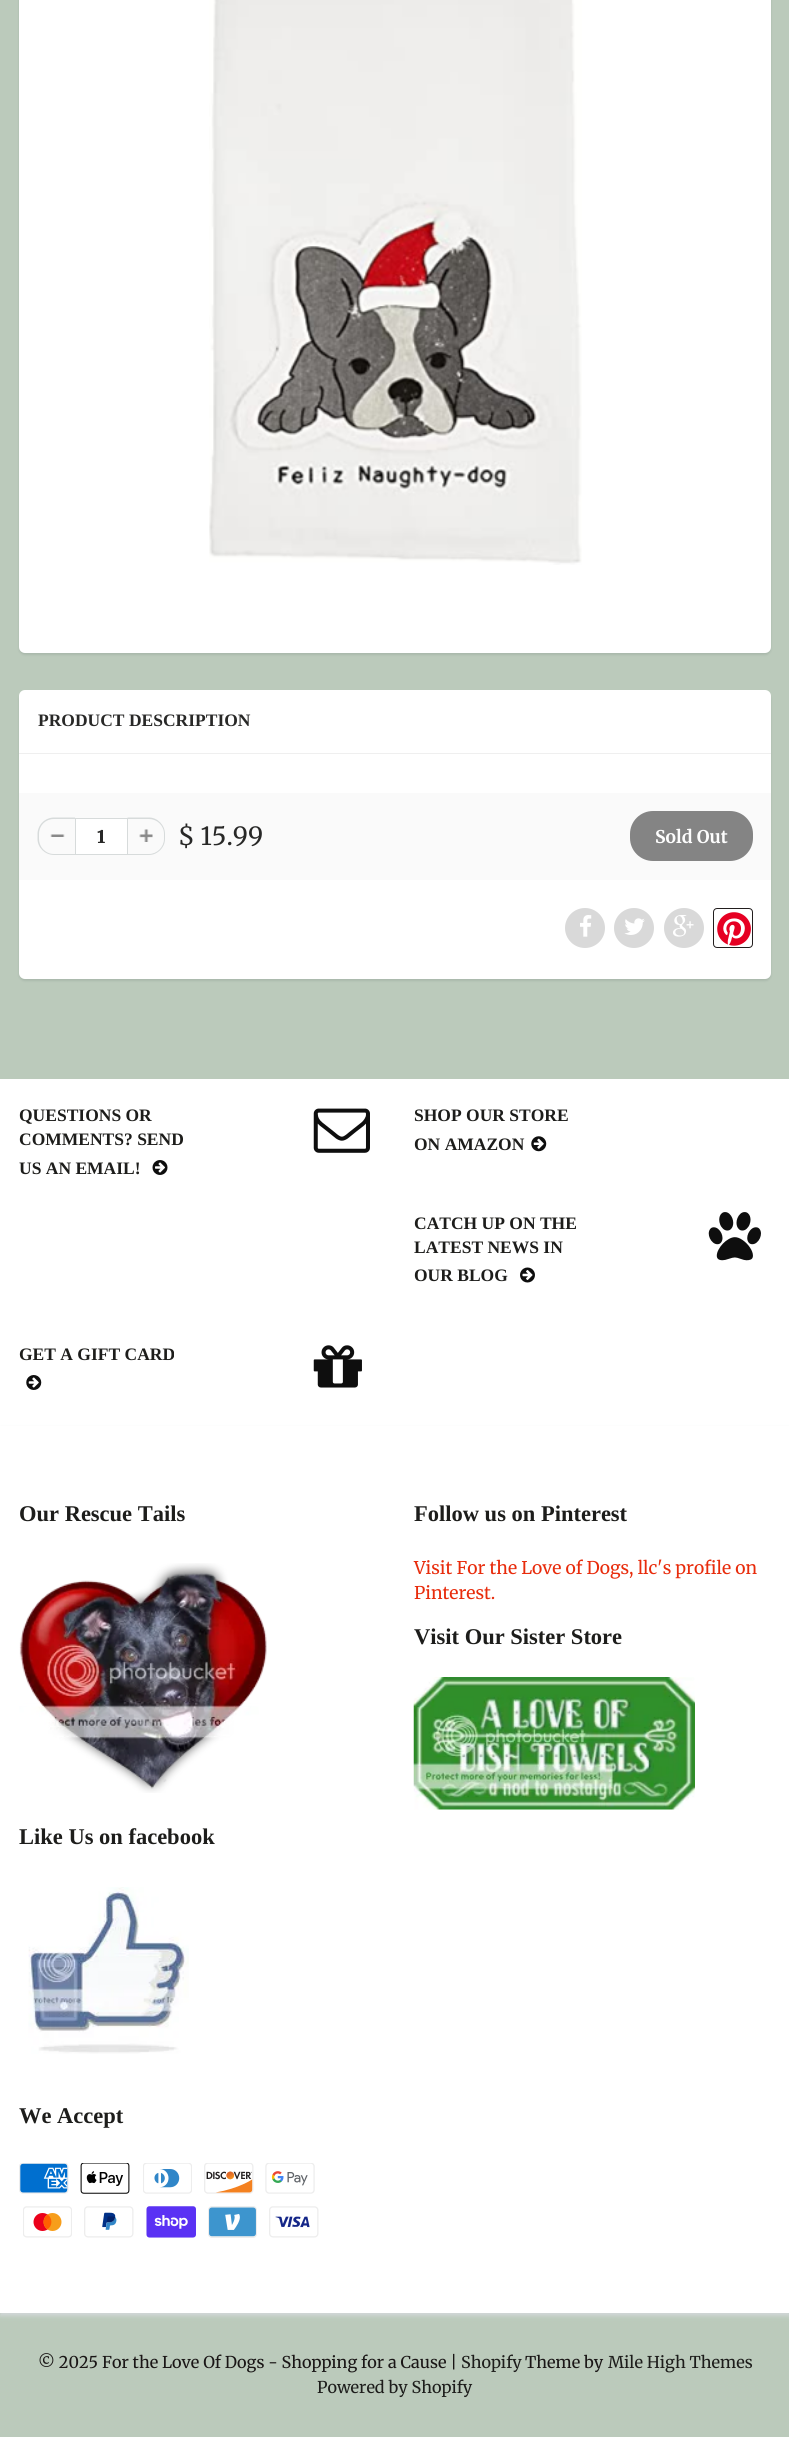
#include <cairo.h>
#include <math.h>
#include <stddef.h>

typedef struct { const char *family; double size; int italic, bold; unsigned color; } style_t;
static cairo_t *ctx;

static void ink(unsigned color) {
    cairo_set_source_rgb(ctx, (color >> 16) / 255.0, (color >> 8 & 255) / 255.0, (color & 255) / 255.0);
}

static void write(double x, double y, const char *s, const style_t *st) {
    cairo_select_font_face(ctx, st->family, st->italic ? CAIRO_FONT_SLANT_ITALIC : CAIRO_FONT_SLANT_NORMAL,
        st->bold ? CAIRO_FONT_WEIGHT_BOLD : CAIRO_FONT_WEIGHT_NORMAL);
    cairo_set_font_size(ctx, st->size);
    ink(st->color);
    cairo_move_to(ctx, x, y);
    cairo_show_text(ctx, s);
}

static void block(double x, double y, double w, double h, unsigned color) {
    ink(color);
    cairo_rectangle(ctx, x, y, w, h);
    cairo_fill(ctx);
}

static void round_path(double x, double y, double w, double h, double r) {
    cairo_new_sub_path(ctx);
    cairo_arc(ctx, x + w - r, y + h - r, r, 0, M_PI / 2);
    cairo_arc(ctx, x + r, y + h - r, r, M_PI / 2, M_PI);
    cairo_arc(ctx, x + r, y + r, r, M_PI, 1.5 * M_PI);
    cairo_arc(ctx, x + w - r, y + r, r, 1.5 * M_PI, 2 * M_PI);
    cairo_close_path(ctx);
}

static void blur_box(double x, double y, double w, double h, double r, double blur, double alpha) {
    cairo_push_group_with_content(ctx, CAIRO_CONTENT_ALPHA);
    cairo_set_operator(ctx, CAIRO_OPERATOR_SOURCE);
    for (int i = 15; i >= -15 && fmin(w, h) + blur * i / 3 > 0; i -= 2) {
        double e = blur * i / 6;
        cairo_set_source_rgba(ctx, 0, 0, 0, alpha * erfc((i - 1) / 8.5) / 2);
        round_path(x - e, y - e, w + 2 * e, h + 2 * e, fmax(0, fmin(r + e + blur * .6, fmin(w, h) / 2 + e)));
        cairo_fill(ctx);
    }
    cairo_pattern_t *soft = cairo_pop_group(ctx);
    cairo_mask(ctx, soft);
    cairo_pattern_destroy(soft);
}

static void paste(const char *path, double x, double y, double w, double h) {
    cairo_surface_t *image = cairo_image_surface_create_from_png(path);
    cairo_save(ctx);
    cairo_set_source_surface(ctx, image, x, y);
    cairo_rectangle(ctx, x, y, w, h);
    cairo_fill(ctx);
    cairo_restore(ctx);
    cairo_surface_destroy(image);
}

static const style_t s1 = {"Liberation Serif", 17.5, 0, 1, 0x282827};
static const style_t s2 = {"Merriweather Black", 17.5, 0, 0, 0x282827};
static const style_t s3 = {"Merriweather", 25, 0, 0, 0x282827};
static const style_t s4 = {"Merriweather", 17.5, 0, 1, 0xfdfdfd};
static const style_t s5 = {"Liberation Serif", 17.5, 0, 1, 0x1d1d1b};
static const style_t s6 = {"Liberation Serif", 22.5, 0, 1, 0x1d1d1b};
static const style_t s7 = {"Merriweather", 17.5, 0, 0, 0xe82c0c};
static const style_t s8 = {"Merriweather", 16.25, 0, 0, 0x1a1616};
static const style_t s9 = {"Merriweather", 16.25, 0, 0, 0x1d1d1b};

int main(void) {
    cairo_surface_t *surface = cairo_image_surface_create(CAIRO_FORMAT_RGB24, 789, 2437);
    ctx = cairo_create(surface);
    cairo_font_options_t *options = cairo_font_options_create();
    cairo_font_options_set_hint_metrics(options, CAIRO_HINT_METRICS_OFF);
    cairo_font_options_set_hint_style(options, CAIRO_HINT_STYLE_NONE);
    cairo_set_font_options(ctx, options);
    cairo_set_miter_limit(ctx, 4);
    ink(0xffffff);
    cairo_paint(ctx);
    block(0, 0, 789, 1079, 0xbbcabb);
    ink(0x0b191c);
    blur_box(19, -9, 752, 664, 6, 1, 0.1);
    ink(0xffffff);
    round_path(19, -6, 752, 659, 6);
    cairo_fill(ctx);
    paste("pic1.png", 209, 0, 373, 565);
    ink(0x0b191c);
    blur_box(19, 693, 752, 288, 6, 1, 0.1);
    ink(0xffffff);
    round_path(19, 690, 752, 289, 6);
    cairo_fill(ctx);
    block(19, 753, 752, 1, 0xefefef);
    write(38, 726, "PRODUCT DESCRIPTION", &s1);
    block(19, 793, 752, 87, 0xfafafa);
    paste("pic2.png", 50, 834, 15, 3);
    ink(0xd7dbdb);
    cairo_set_fill_rule(ctx, CAIRO_FILL_RULE_EVEN_ODD);
    cairo_new_path(ctx);
    cairo_move_to(ctx, 54, 817.5);
    cairo_line_to(ctx, 75, 817.5);
    cairo_line_to(ctx, 75, 855);
    cairo_line_to(ctx, 54, 855);
    cairo_curve_to(ctx, 45, 855, 37.5, 847.5, 37.5, 839);
    cairo_line_to(ctx, 37.5, 834);
    cairo_curve_to(ctx, 37.5, 825, 45, 817.5, 54, 817.5);
    cairo_close_path(ctx);
    cairo_move_to(ctx, 54, 819);
    cairo_line_to(ctx, 75, 819);
    cairo_line_to(ctx, 75, 854);
    cairo_line_to(ctx, 54, 854);
    cairo_curve_to(ctx, 45.5, 854, 39, 847, 39, 839);
    cairo_line_to(ctx, 39, 834);
    cairo_curve_to(ctx, 39, 825.5, 45.5, 819, 54, 819);
    cairo_close_path(ctx);
    cairo_fill(ctx);
    ink(0xffffff);
    cairo_rectangle(ctx, 75.5, 818.5, 52, 36);
    cairo_fill_preserve(ctx);
    ink(0xd7dbdb);
    cairo_set_line_width(ctx, 1);
    cairo_stroke(ctx);
    write(97, 843, "1", &s2);
    paste("pic3.png", 139, 829, 14, 13);
    ink(0xd7dbdb);
    cairo_new_path(ctx);
    cairo_move_to(ctx, 127.5, 817.5);
    cairo_line_to(ctx, 149, 817.5);
    cairo_curve_to(ctx, 157.5, 817.5, 165, 825, 165, 834);
    cairo_line_to(ctx, 165, 839);
    cairo_curve_to(ctx, 165, 847.5, 157.5, 855, 149, 855);
    cairo_line_to(ctx, 127.5, 855);
    cairo_close_path(ctx);
    cairo_move_to(ctx, 127.5, 819);
    cairo_line_to(ctx, 149, 819);
    cairo_curve_to(ctx, 157, 819, 164, 825.5, 164, 834);
    cairo_line_to(ctx, 164, 839);
    cairo_curve_to(ctx, 164, 847, 157, 854, 149, 854);
    cairo_line_to(ctx, 127.5, 854);
    cairo_close_path(ctx);
    cairo_fill(ctx);
    write(178, 845, "$ 15.99", &s3);
    ink(0x848484);
    round_path(630, 811, 123, 50, 23);
    cairo_fill(ctx);
    write(655, 843, "Sold Out", &s4);
    ink(0xd9d9d9);
    cairo_new_path(ctx);
    cairo_arc(ctx, 585, 928, 20, 0, 2 * M_PI);
    cairo_fill(ctx);
    paste("pic4.png", 580, 915, 12, 22);
    cairo_arc(ctx, 634, 928, 20, 0, 2 * M_PI);
    cairo_fill(ctx);
    paste("pic5.png", 624, 918, 21, 17);
    cairo_arc(ctx, 684, 928, 20, 0, 2 * M_PI);
    cairo_fill(ctx);
    paste("pic6.png", 673, 915, 21, 22);
    paste("pic7.png", 717, 912, 34, 34);
    round_path(713.5, 908.5, 39, 39, 3.5);
    ink(0x221e1e);
    cairo_stroke(ctx);
    write(19, 1121, "QUESTIONS OR", &s5);
    write(19, 1145, "COMMENTS? SEND", &s5);
    write(19, 1174, "US AN EMAIL!", &s5);
    paste("pic8.png", 152, 1160, 16, 15);
    paste("pic9.png", 313, 1108, 57, 45);
    write(414, 1121, "SHOP OUR STORE", &s5);
    write(414, 1150, "ON AMAZON", &s5);
    paste("pic10.png", 531, 1136, 16, 16);
    write(414, 1229, "CATCH UP ON THE", &s5);
    write(414, 1253, "LATEST NEWS IN", &s5);
    write(414, 1281, "OUR BLOG", &s5);
    paste("pic11.png", 520, 1267, 15, 16);
    paste("pic12.png", 708, 1212, 53, 49);
    write(19, 1360, "GET A GIFT CARD", &s5);
    paste("pic13.png", 26, 1375, 16, 15);
    paste("pic14.png", 313, 1345, 49, 43);
    block(0, 2313, 789, 124, 0xbbcabb);
    ink(0xd1d7d7);
    blur_box(0, 1429, 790, 887, 0, 2, 1);
    block(0, 1426, 789, 887, 0xffffff);
    write(19, 1521, "Our Rescue Tails", &s6);
    paste("pic15.png", 19, 1563, 248, 230);
    write(19, 1844, "Like Us on facebook", &s6);
    paste("pic16.png", 28, 1887, 161, 167);
    write(19, 2123, "We Accept", &s6);
    paste("pic17.png", 19, 2163, 50, 31);
    paste("pic18.png", 80, 2163, 50, 31);
    paste("pic19.png", 143, 2163, 49, 31);
    paste("pic20.png", 204, 2163, 50, 31);
    paste("pic21.png", 265, 2163, 50, 31);
    paste("pic22.png", 23, 2206, 49, 32);
    paste("pic23.png", 84, 2206, 50, 32);
    paste("pic24.png", 146, 2206, 50, 32);
    paste("pic25.png", 208, 2206, 49, 32);
    paste("pic26.png", 269, 2206, 50, 32);
    write(414, 1521, "Follow us on Pinterest", &s6);
    write(414, 1574, "Visit For the Love of Dogs, llc's profile on", &s7);
    write(414, 1599, "Pinterest.", &s7);
    write(414, 1644, "Visit Our Sister Store", &s6);
    paste("pic27.png", 413, 1677, 282, 133);
    write(38, 2368, "© 2025 For the Love Of Dogs - Shopping for a Cause |", &s8);
    write(461, 2368, "Shopify", &s9);
    write(525, 2368, "Theme by", &s8);
    write(608, 2368, "Mile High Themes", &s9);
    write(317, 2393, "Powered by Shopify", &s9);
    cairo_surface_write_to_png(surface, "screenshot.png");
    cairo_font_options_destroy(options);
    cairo_destroy(ctx);
    cairo_surface_destroy(surface);
    return 0;
}
